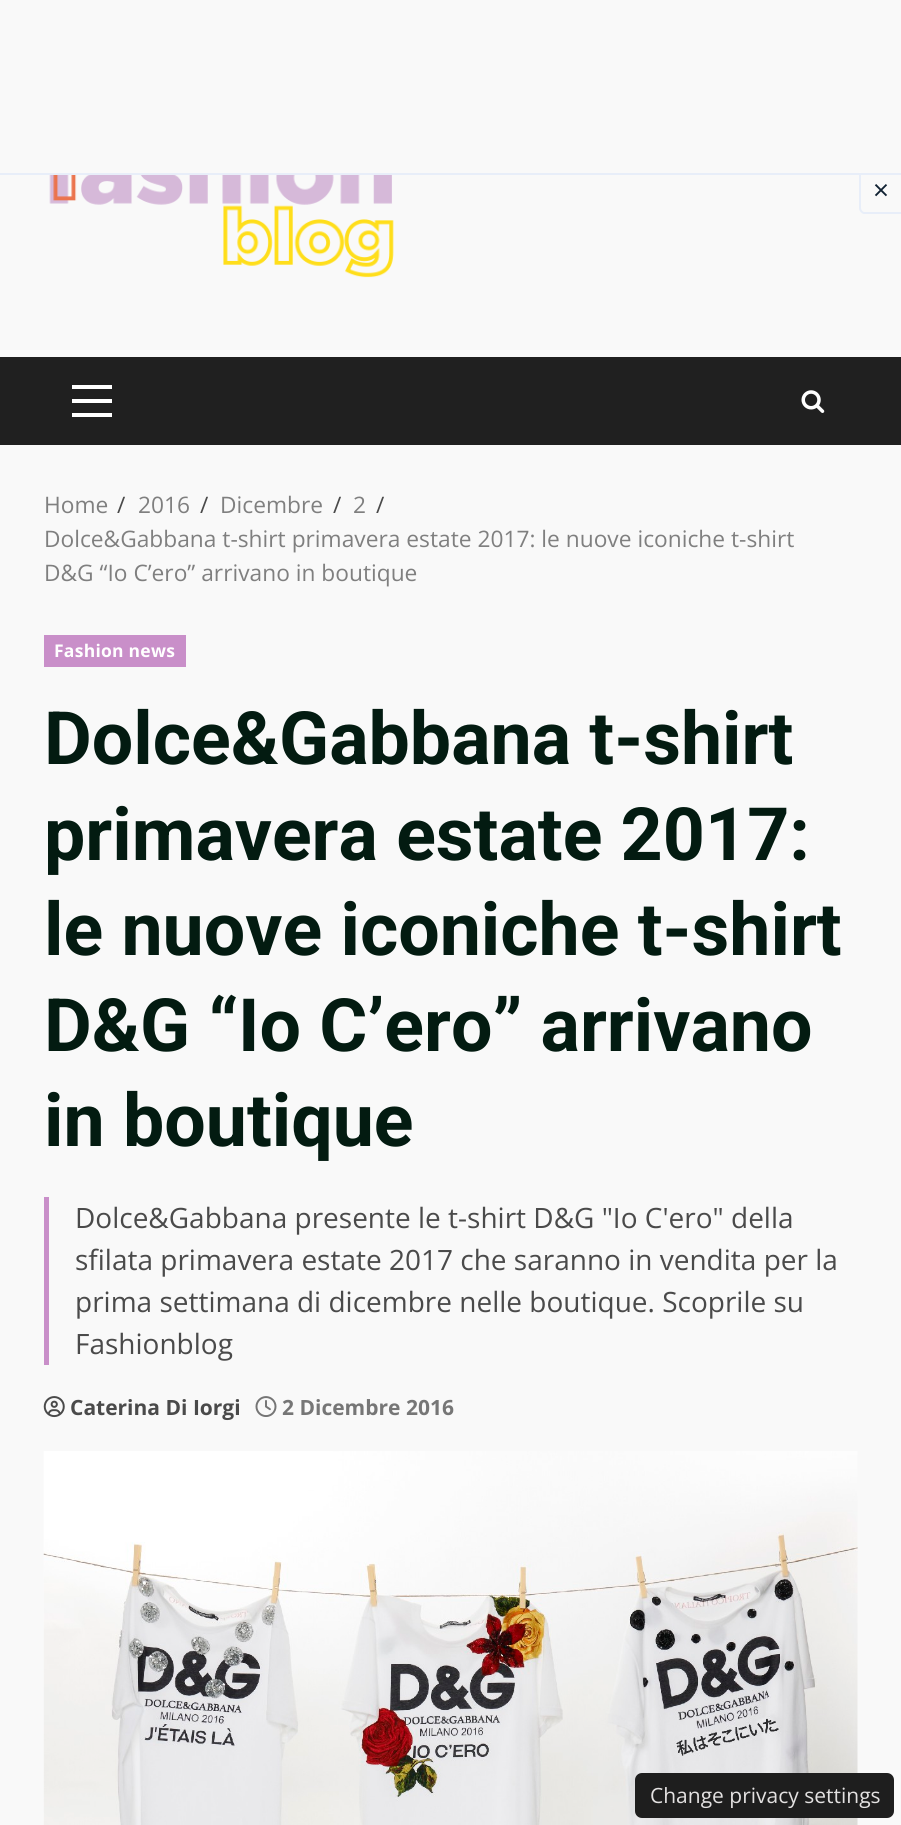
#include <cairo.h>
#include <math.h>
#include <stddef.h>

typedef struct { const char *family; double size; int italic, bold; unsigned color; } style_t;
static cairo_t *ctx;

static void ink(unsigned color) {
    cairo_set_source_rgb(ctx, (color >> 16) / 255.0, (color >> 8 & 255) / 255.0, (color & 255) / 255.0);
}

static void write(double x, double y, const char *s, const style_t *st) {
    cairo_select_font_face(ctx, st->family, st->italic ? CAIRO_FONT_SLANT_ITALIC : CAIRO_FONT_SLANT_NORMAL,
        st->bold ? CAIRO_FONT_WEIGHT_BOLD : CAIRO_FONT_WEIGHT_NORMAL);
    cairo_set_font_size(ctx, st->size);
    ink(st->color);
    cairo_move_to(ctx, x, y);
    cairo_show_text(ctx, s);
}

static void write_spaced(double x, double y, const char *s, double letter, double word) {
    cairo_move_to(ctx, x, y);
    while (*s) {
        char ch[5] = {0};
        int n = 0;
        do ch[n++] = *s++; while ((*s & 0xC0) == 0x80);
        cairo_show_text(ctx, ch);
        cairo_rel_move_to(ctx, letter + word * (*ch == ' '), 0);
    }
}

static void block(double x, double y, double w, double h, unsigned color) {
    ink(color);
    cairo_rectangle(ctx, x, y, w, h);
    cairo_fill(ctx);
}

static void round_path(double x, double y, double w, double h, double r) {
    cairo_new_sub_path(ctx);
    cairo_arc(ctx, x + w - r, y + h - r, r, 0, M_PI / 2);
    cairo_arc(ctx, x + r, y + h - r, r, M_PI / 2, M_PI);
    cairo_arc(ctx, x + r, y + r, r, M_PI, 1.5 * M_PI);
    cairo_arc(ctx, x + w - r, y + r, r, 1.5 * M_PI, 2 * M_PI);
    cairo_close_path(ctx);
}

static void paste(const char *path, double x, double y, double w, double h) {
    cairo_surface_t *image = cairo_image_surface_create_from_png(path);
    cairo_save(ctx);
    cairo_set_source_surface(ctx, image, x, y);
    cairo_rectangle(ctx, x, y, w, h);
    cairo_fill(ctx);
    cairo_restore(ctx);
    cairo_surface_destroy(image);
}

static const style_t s1 = {"Open Sans", 28, 0, 0, 0x112233};
static const style_t s2 = {"Open Sans", 22.75, 0, 0, 0x7f7f7f};
static const style_t s3 = {"Open Sans", 22.75, 0, 0, 0x4a4a4a};
static const style_t s4 = {"Roboto", 73.5, 0, 1, 0x031b11};
static const style_t s5 = {"Open Sans", 28, 0, 0, 0x4a4a4a};
static const style_t s6 = {"Open Sans", 21, 0, 1, 0x4a4a4a};
static const style_t s7 = {"Open Sans", 21, 0, 1, 0x767676};
static const style_t s8 = {"Open Sans", 21, 0, 0, 0xe3e1e1};

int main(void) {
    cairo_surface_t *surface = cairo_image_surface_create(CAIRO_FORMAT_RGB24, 901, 1825);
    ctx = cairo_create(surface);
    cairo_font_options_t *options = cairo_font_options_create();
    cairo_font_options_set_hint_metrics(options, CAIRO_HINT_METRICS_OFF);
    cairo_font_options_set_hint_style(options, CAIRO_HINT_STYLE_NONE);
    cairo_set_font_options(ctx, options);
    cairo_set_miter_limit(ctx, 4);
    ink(0xf9f9f9);
    cairo_paint(ctx);
    ink(0xe8eef9);
    cairo_set_fill_rule(ctx, CAIRO_FILL_RULE_EVEN_ODD);
    cairo_new_path(ctx);
    cairo_move_to(ctx, 859, 172);
    cairo_line_to(ctx, 901, 172);
    cairo_line_to(ctx, 901, 214);
    cairo_line_to(ctx, 864, 214);
    cairo_curve_to(ctx, 862, 214, 859, 211, 859, 208);
    cairo_close_path(ctx);
    cairo_move_to(ctx, 861, 172);
    cairo_line_to(ctx, 901, 172);
    cairo_line_to(ctx, 901, 212);
    cairo_line_to(ctx, 864, 212);
    cairo_curve_to(ctx, 863, 212, 861, 210, 861, 208);
    cairo_close_path(ctx);
    cairo_fill(ctx);
    block(859, 172, 2, 1, 0xfafafa);
    block(0, 173, 901, 2, 0xe8eef9);
    write(873, 200, "×", &s1);
    paste("pic1.png", 49, 175, 345, 103);
    block(0, 357, 901, 88, 0x202020);
    block(72, 399, 40, 4, 0xffffff);
    block(72, 385, 40, 4, 0xffffff);
    block(72, 413, 40, 4, 0xffffff);
    paste("pic2.png", 801, 390, 24, 23);
    write(44, 513, "Home", &s2);
    write(117, 513, "/", &s3);
    write(138, 513, "2016", &s2);
    write(200, 513, "/", &s3);
    write(220, 513, "Dicembre", &s2);
    write(333, 513, "/", &s3);
    write(353, 513, "2", &s2);
    write(376, 513, "/", &s3);
    write(44, 547, "Dolce&Gabbana t-shirt primavera estate 2017: le nuove iconiche t-shirt", &s2);
    write(44, 581, "D&G “Io C’ero” arrivano in boutique", &s2);
    block(44, 635, 142, 32, 0xc98fc9);
    cairo_select_font_face(ctx, "Open Sans", CAIRO_FONT_SLANT_NORMAL, CAIRO_FONT_WEIGHT_BOLD);
    cairo_set_font_size(ctx, 17.5);
    ink(0xffffff);
    write_spaced(54, 657, "Fashion news", 0.25, 0);
    write(44, 764, "Dolce&Gabbana t-shirt", &s4);
    write(44, 860, "primavera estate 2017:", &s4);
    write(44, 955, "le nuove iconiche t-shirt", &s4);
    write(44, 1051, "D&G “Io C’ero” arrivano", &s4);
    write(44, 1146, "in boutique", &s4);
    block(44, 1197, 5, 168, 0xc98fc9);
    write(75, 1228, "Dolce&Gabbana presente le t-shirt D&G \"Io C'ero\" della", &s5);
    write(75, 1270, "sfilata primavera estate 2017 che saranno in vendita per la", &s5);
    write(75, 1312, "prima settimana di dicembre nelle boutique. Scoprile su", &s5);
    write(75, 1354, "Fashionblog", &s5);
    paste("pic3.png", 43, 1396, 22, 22);
    write(70, 1415, "Caterina Di Iorgi", &s6);
    paste("pic4.png", 255, 1396, 22, 21);
    write(282, 1415, "2 Dicembre 2016", &s7);
    paste("pic5.png", 43, 1451, 815, 374);
    ink(0x1e1e1e);
    round_path(635, 1773, 259, 45, 7);
    cairo_fill(ctx);
    write(650, 1803, "Change privacy settings", &s8);
    cairo_surface_write_to_png(surface, "screenshot.png");
    cairo_font_options_destroy(options);
    cairo_destroy(ctx);
    cairo_surface_destroy(surface);
    return 0;
}
